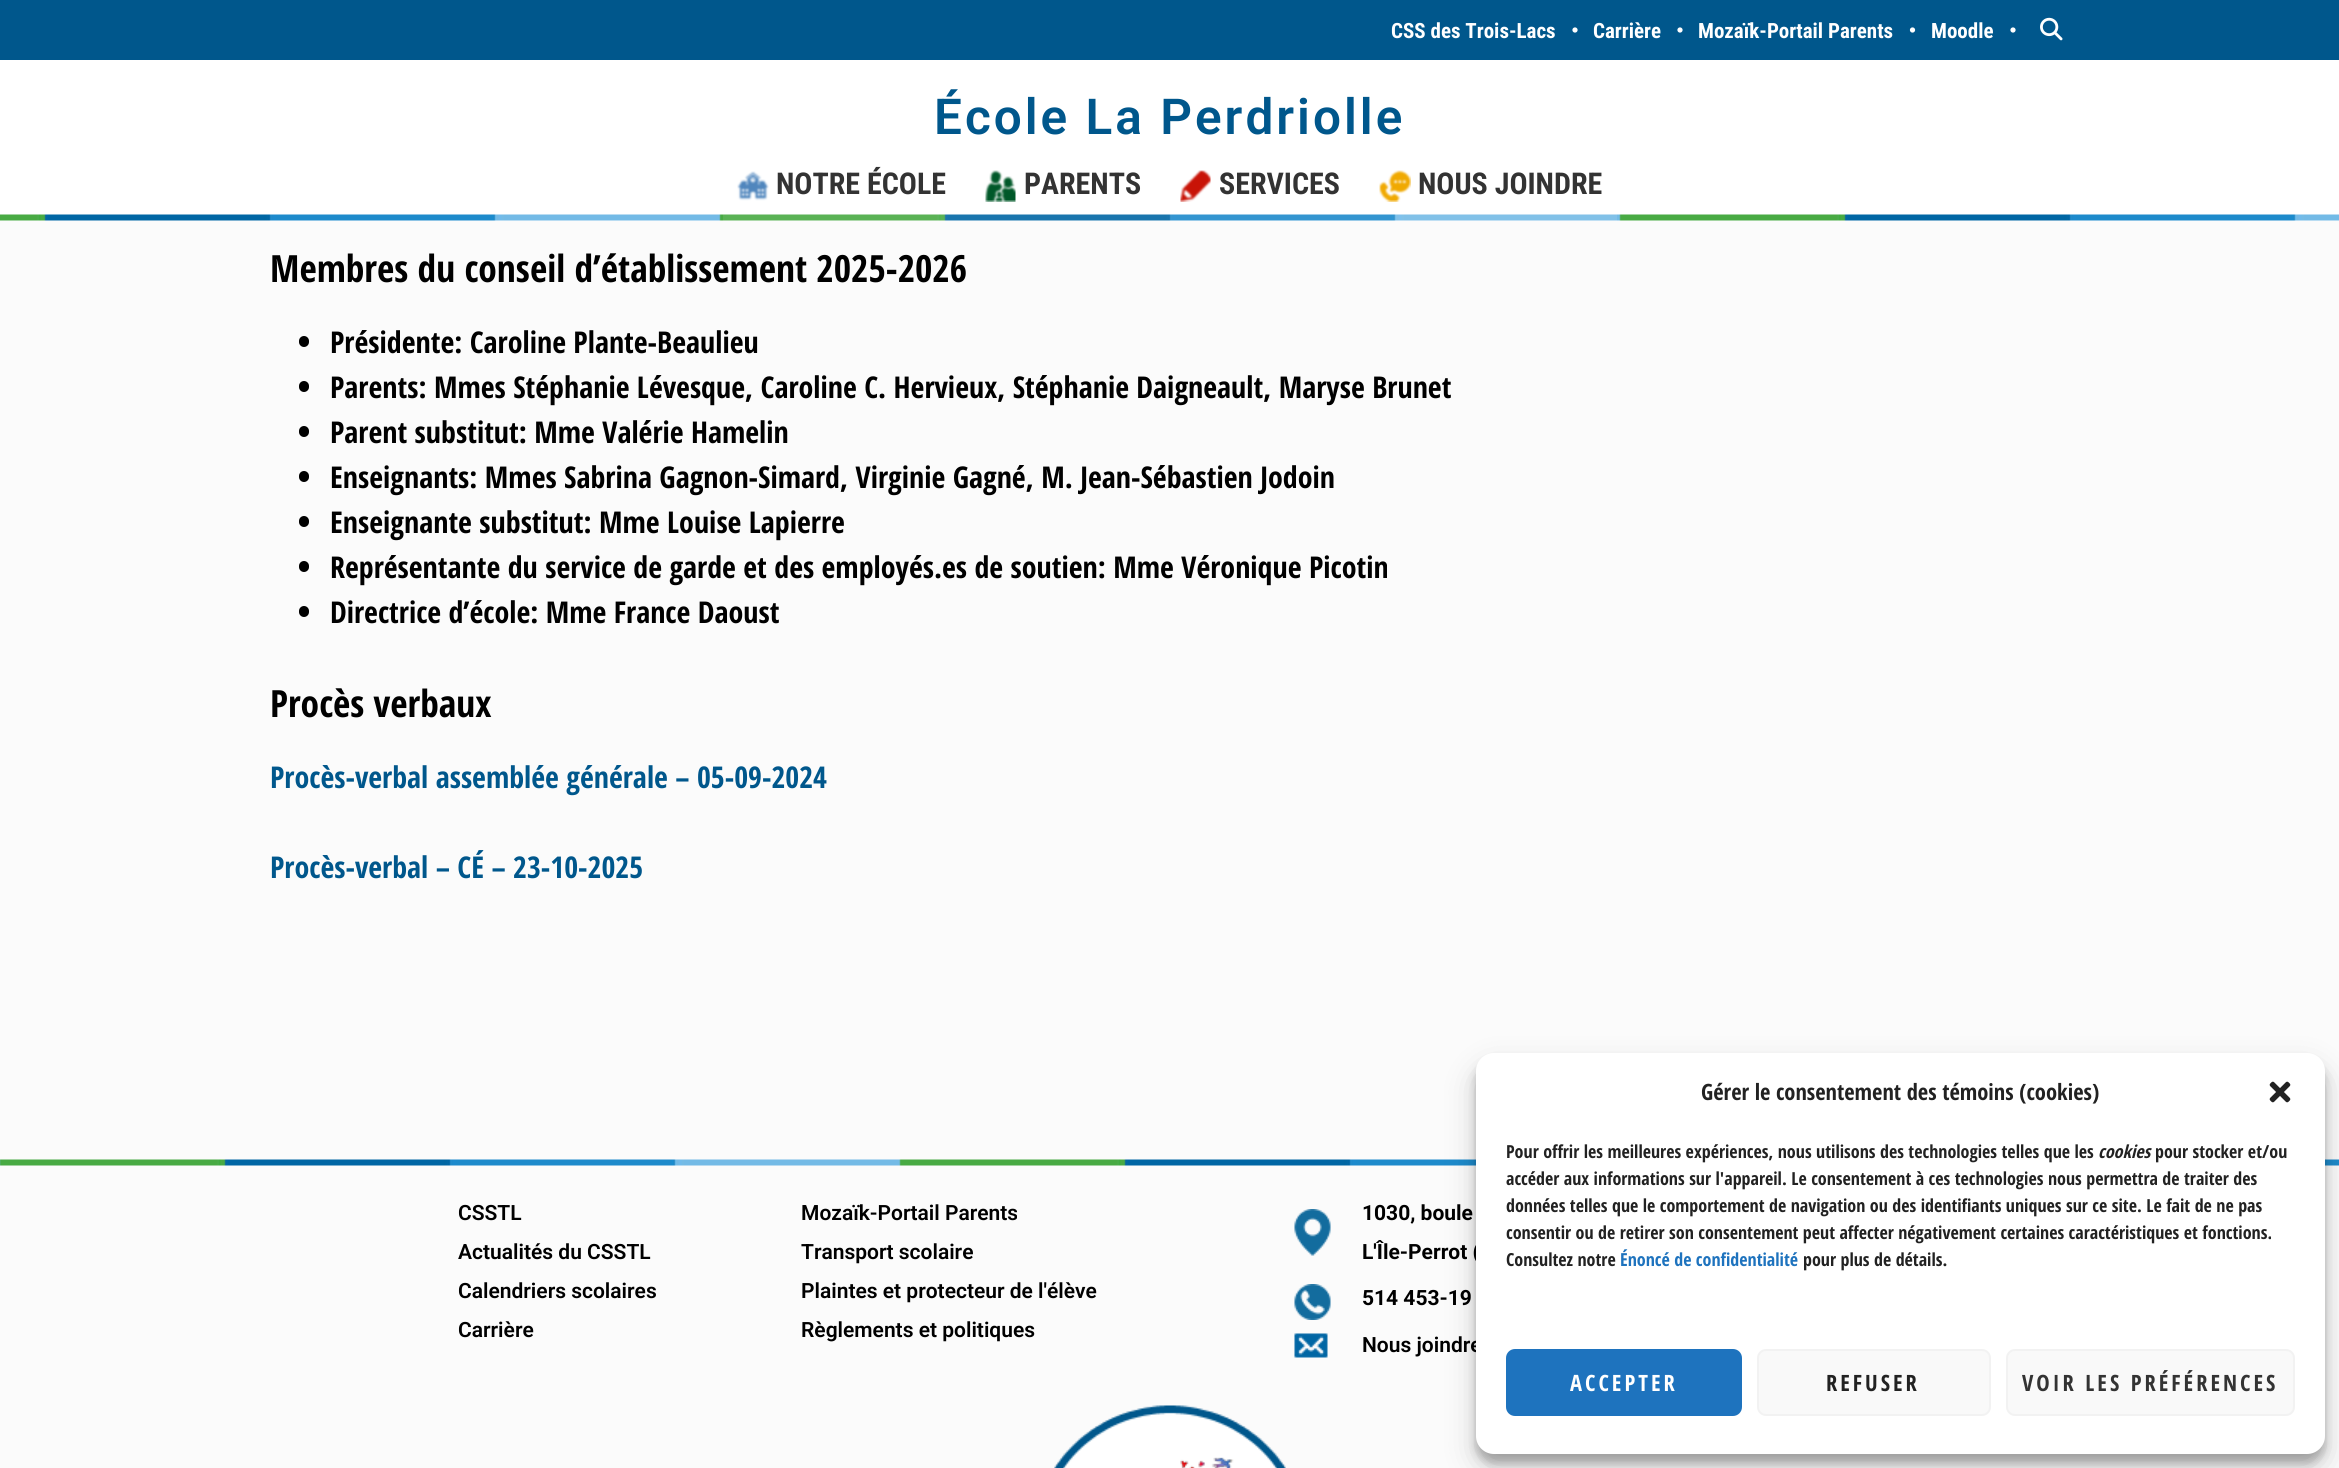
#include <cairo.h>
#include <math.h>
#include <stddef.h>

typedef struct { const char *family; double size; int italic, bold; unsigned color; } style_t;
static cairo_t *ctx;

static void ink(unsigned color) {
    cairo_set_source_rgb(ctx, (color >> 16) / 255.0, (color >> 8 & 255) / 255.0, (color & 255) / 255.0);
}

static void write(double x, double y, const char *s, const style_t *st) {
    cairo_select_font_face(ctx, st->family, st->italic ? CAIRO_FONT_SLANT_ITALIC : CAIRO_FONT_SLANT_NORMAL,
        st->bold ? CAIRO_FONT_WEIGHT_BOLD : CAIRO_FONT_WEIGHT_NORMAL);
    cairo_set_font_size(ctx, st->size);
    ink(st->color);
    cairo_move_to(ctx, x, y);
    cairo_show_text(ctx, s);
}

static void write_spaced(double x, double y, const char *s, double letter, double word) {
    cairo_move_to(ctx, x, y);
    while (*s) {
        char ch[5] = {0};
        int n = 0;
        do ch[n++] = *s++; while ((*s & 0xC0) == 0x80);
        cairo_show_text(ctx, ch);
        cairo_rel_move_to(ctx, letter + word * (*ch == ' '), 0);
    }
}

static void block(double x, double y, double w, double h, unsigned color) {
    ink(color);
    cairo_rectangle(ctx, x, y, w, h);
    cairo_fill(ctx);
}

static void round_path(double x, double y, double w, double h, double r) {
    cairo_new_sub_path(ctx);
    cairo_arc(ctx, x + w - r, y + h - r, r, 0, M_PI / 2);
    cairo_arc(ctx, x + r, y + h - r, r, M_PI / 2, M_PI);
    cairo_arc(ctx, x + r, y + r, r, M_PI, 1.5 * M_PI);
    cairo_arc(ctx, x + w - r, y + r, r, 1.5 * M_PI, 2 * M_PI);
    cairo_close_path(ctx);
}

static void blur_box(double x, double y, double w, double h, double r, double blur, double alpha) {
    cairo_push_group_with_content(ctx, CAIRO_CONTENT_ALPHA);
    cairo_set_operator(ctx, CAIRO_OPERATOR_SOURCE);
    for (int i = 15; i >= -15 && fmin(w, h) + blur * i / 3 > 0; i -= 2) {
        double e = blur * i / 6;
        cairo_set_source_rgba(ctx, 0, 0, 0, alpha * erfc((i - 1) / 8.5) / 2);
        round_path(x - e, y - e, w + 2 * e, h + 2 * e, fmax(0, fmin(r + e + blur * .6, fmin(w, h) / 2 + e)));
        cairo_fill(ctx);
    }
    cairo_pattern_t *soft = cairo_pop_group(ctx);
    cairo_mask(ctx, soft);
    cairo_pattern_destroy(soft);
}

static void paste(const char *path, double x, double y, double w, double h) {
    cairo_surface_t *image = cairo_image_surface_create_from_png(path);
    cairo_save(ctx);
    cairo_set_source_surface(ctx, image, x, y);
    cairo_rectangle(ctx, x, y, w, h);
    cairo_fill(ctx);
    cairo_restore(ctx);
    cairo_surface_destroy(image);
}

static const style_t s1 = {"Roboto Condensed", 21, 0, 1, 0xffffff};
static const style_t s2 = {"Roboto Condensed", 30, 0, 1, 0x333333};
static const style_t s3 = {"Open Sans Condensed", 37.5, 0, 1, 0x000000};
static const style_t s4 = {"Open Sans Condensed", 30, 0, 1, 0x000000};
static const style_t s5 = {"Open Sans Condensed", 30, 0, 1, 0x00578c};
static const style_t s6 = {"Roboto SemiBold", 21, 0, 0, 0x000000};
static const style_t s7 = {"Roboto", 21, 0, 1, 0x000000};
static const style_t s8 = {"Open Sans Condensed", 22.5, 0, 1, 0x222222};
static const style_t s9 = {"Open Sans Condensed", 18, 0, 1, 0x222222};
static const style_t s10 = {"Open Sans Condensed", 18, 1, 1, 0x222222};
static const style_t s11 = {"Open Sans Condensed", 18, 0, 1, 0x1e73be};

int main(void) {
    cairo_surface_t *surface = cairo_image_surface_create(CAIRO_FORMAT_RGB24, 2339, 1468);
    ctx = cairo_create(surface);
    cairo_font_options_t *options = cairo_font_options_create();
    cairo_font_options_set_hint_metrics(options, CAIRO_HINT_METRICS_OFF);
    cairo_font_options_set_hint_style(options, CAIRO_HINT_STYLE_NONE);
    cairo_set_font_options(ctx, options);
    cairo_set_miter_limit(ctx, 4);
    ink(0xfbfbfb);
    cairo_paint(ctx);
    block(0, 60, 2339, 161, 0xffffff);
    paste("pic1.png", 0, 0, 2339, 221);
    write(1391, 38, "CSS des Trois-Lacs", &s1);
    paste("pic2.png", 1572, 27, 6, 6);
    write(1593, 38, "Carrière", &s1);
    paste("pic2.png", 1677, 27, 6, 6);
    write(1698, 38, "Mozaïk-Portail Parents", &s1);
    paste("pic3.png", 1909, 27, 7, 6);
    write(1931, 38, "Moodle", &s1);
    paste("pic2.png", 2010, 27, 6, 6);
    paste("pic4.png", 2040, 17, 23, 24);
    cairo_select_font_face(ctx, "Roboto SemiBold", CAIRO_FONT_SLANT_NORMAL, CAIRO_FONT_WEIGHT_NORMAL);
    cairo_set_font_size(ctx, 49.5);
    ink(0x00578c);
    write_spaced(934, 134, "École La Perdriolle", 3, 0);
    cairo_set_source_rgba(ctx, 1, 1, 1, 0.1);
    cairo_rectangle(ctx, 723, 214, 248, 7);
    cairo_fill(ctx);
    paste("pic5.png", 737, 171, 32, 30);
    write(776, 194, "NOTRE ÉCOLE", &s2);
    cairo_set_source_rgba(ctx, 1, 1, 1, 0.1);
    cairo_rectangle(ctx, 971, 214, 195, 7);
    cairo_fill(ctx);
    paste("pic6.png", 985, 170, 31, 32);
    write(1024, 194, "PARENTS", &s2);
    cairo_set_source_rgba(ctx, 1, 1, 1, 0.1);
    cairo_rectangle(ctx, 1166, 214, 199, 7);
    cairo_fill(ctx);
    paste("pic7.png", 1180, 170, 31, 32);
    write(1219, 194, "SERVICES", &s2);
    cairo_set_source_rgba(ctx, 1, 1, 1, 0.1);
    cairo_rectangle(ctx, 1365, 214, 252, 7);
    cairo_fill(ctx);
    paste("pic8.png", 1379, 170, 32, 32);
    write(1418, 194, "NOUS JOINDRE", &s2);
    write(270, 282, "Membres du conseil d’établissement 2025-2026", &s3);
    round_path(299, 336, 10, 11, 5);
    cairo_fill(ctx);
    write(330, 353, "Présidente: Caroline Plante-Beaulieu", &s4);
    round_path(299, 381, 10, 11, 5);
    cairo_fill(ctx);
    write(330, 398, "Parents: Mmes Stéphanie Lévesque, Caroline C. Hervieux, Stéphanie Daigneault, Maryse Brunet", &s4);
    round_path(299, 426, 10, 11, 5);
    cairo_fill(ctx);
    write(330, 443, "Parent substitut: Mme Valérie Hamelin", &s4);
    round_path(299, 471, 10, 11, 5);
    cairo_fill(ctx);
    write(330, 488, "Enseignants: Mmes Sabrina Gagnon-Simard, Virginie Gagné, M. Jean-Sébastien Jodoin", &s4);
    round_path(299, 516, 10, 11, 5);
    cairo_fill(ctx);
    write(330, 533, "Enseignante substitut: Mme Louise Lapierre", &s4);
    round_path(299, 561, 10, 11, 5);
    cairo_fill(ctx);
    write(330, 578, "Représentante du service de garde et des employés.es de soutien: Mme Véronique Picotin", &s4);
    round_path(299, 606, 10, 11, 5);
    cairo_fill(ctx);
    write(330, 623, "Directrice d’école: Mme France Daoust", &s4);
    write(270, 717, "Procès verbaux", &s3);
    write(270, 788, "Procès-verbal assemblée générale – 05-09-2024", &s5);
    write(270, 878, "Procès-verbal – CÉ – 23-10-2025", &s5);
    paste("pic9.png", 0, 1159, 2339, 7);
    write(458, 1220, "CSSTL", &s6);
    write(458, 1259, "Actualités du CSSTL", &s6);
    write(458, 1298, "Calendriers scolaires", &s6);
    write(458, 1337, "Carrière", &s6);
    write(801, 1220, "Mozaïk-Portail Parents", &s6);
    write(801, 1259, "Transport scolaire", &s6);
    write(801, 1298, "Plaintes et protecteur de l'élève", &s6);
    write(801, 1337, "Règlements et politiques", &s6);
    paste("pic10.png", 1294, 1209, 37, 47);
    write(1362, 1220, "1030, boule", &s7);
    write(1362, 1259, "L'Île-Perrot (", &s7);
    paste("pic11.png", 1294, 1284, 37, 36);
    write(1362, 1305, "514 453-19", &s7);
    paste("pic12.png", 1294, 1333, 34, 25);
    write(1362, 1352, "Nous joindre", &s6);
    paste("pic13.png", 1054, 1405, 232, 63);
    paste("pic14.png", 1180, 1457, 54, 11);
    ink(0x000000);
    blur_box(1476, 1062, 849, 401, 18, 4.5, 0.23);
    blur_box(1476, 1068, 849, 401, 18, 15, 0.19);
    ink(0xffffff);
    round_path(1476, 1053, 849, 401, 18);
    cairo_fill(ctx);
    write(1701, 1100, "Gérer le consentement des témoins (cookies)", &s8);
    paste("pic15.png", 2269, 1081, 22, 22);
    write(1506, 1158, "Pour offrir les meilleures expériences, nous utilisons des technologies telles que les", &s9);
    write(2098, 1158, "cookies", &s10);
    write(2155, 1158, "pour stocker et/ou", &s9);
    write(1506, 1185, "accéder aux informations sur l'appareil. Le consentement à ces technologies nous permettra de traiter des", &s9);
    write(1506, 1212, "données telles que le comportement de navigation ou des identifiants uniques sur ce site. Le fait de ne pas", &s9);
    write(1506, 1239, "consentir ou de retirer son consentement peut affecter négativement certaines caractéristiques et fonctions.", &s9);
    write(1506, 1266, "Consultez notre", &s9);
    write(1620, 1266, "Énoncé de confidentialité", &s11);
    write(1803, 1266, "pour plus de détails.", &s9);
    ink(0x1e73be);
    round_path(1507, 1350, 234, 65, 8);
    cairo_fill_preserve(ctx);
    cairo_stroke(ctx);
    cairo_set_font_size(ctx, 22.5);
    ink(0xffffff);
    write_spaced(1570, 1391, "ACCEPTER", 3, 0);
    ink(0xf9f9f9);
    round_path(1758, 1350, 232, 65, 8);
    cairo_fill_preserve(ctx);
    ink(0xf2f2f2);
    cairo_stroke(ctx);
    ink(0x222222);
    write_spaced(1826, 1391, "REFUSER", 3, 0);
    ink(0xf9f9f9);
    round_path(2007, 1350, 287, 65, 8);
    cairo_fill_preserve(ctx);
    ink(0xf2f2f2);
    cairo_stroke(ctx);
    ink(0x333333);
    write_spaced(2022, 1391, "VOIR LES PRÉFÉRENCES", 3, 0);
    cairo_surface_write_to_png(surface, "screenshot.png");
    cairo_font_options_destroy(options);
    cairo_destroy(ctx);
    cairo_surface_destroy(surface);
    return 0;
}
